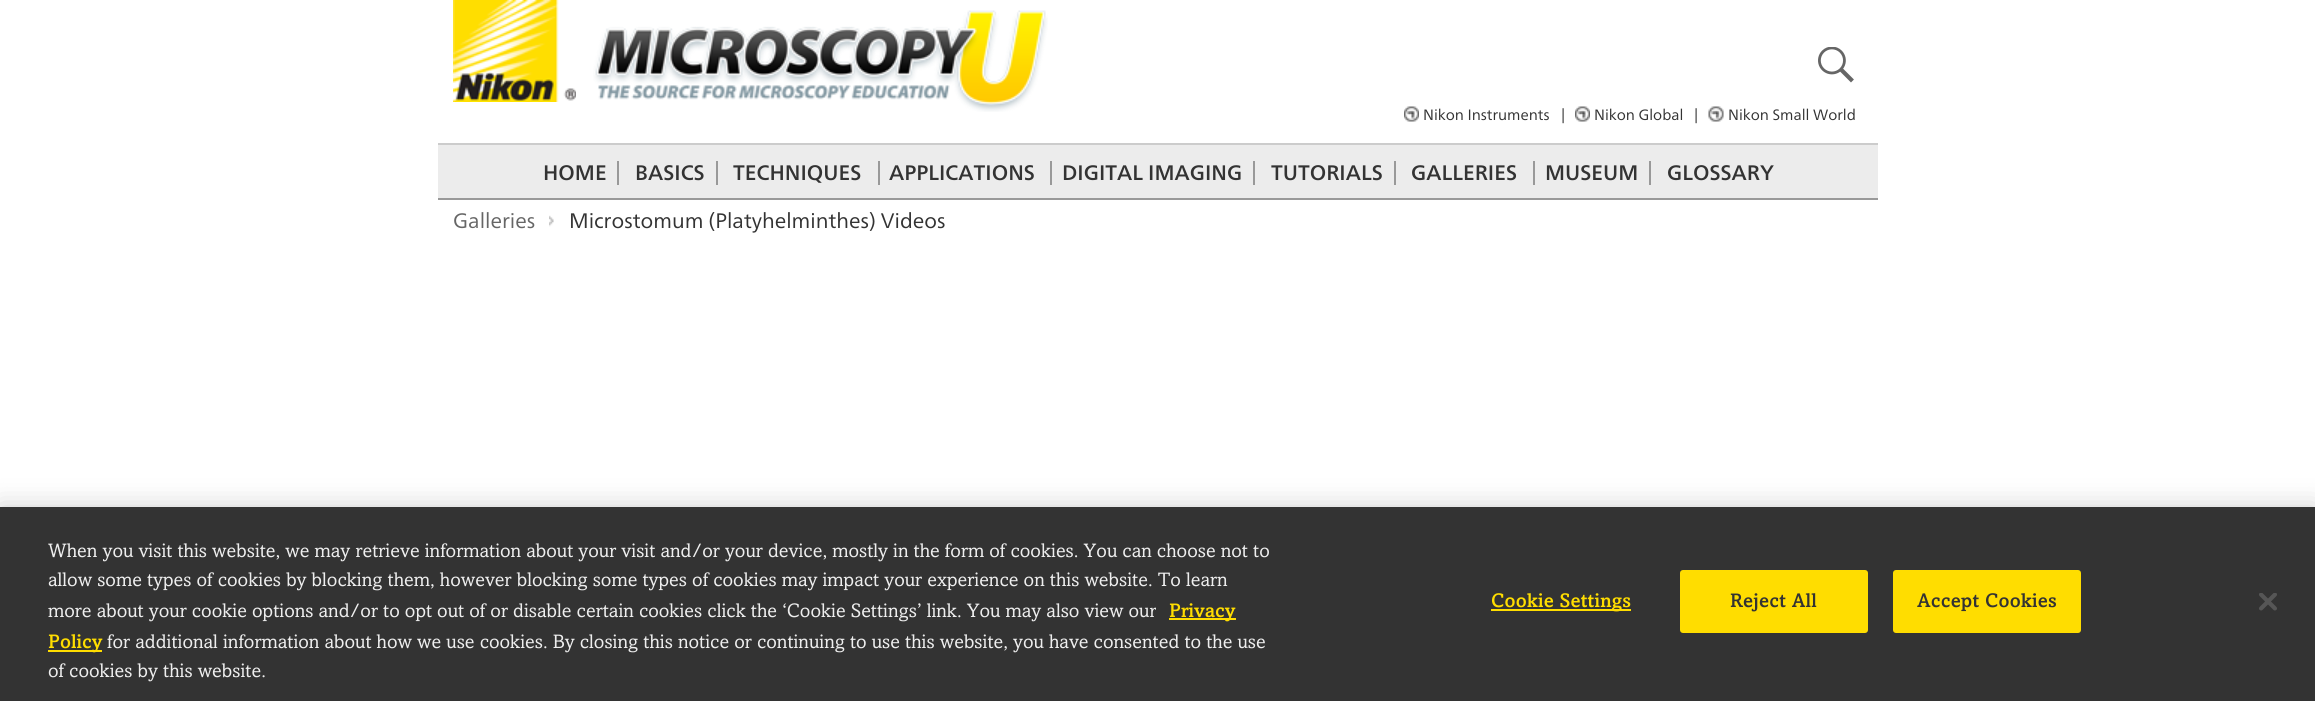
#include <cairo.h>
#include <math.h>
#include <stddef.h>

typedef struct { const char *family; double size; int italic, bold; unsigned color; } style_t;
static cairo_t *ctx;

static void ink(unsigned color) {
    cairo_set_source_rgb(ctx, (color >> 16) / 255.0, (color >> 8 & 255) / 255.0, (color & 255) / 255.0);
}

static void write(double x, double y, const char *s, const style_t *st) {
    cairo_select_font_face(ctx, st->family, st->italic ? CAIRO_FONT_SLANT_ITALIC : CAIRO_FONT_SLANT_NORMAL,
        st->bold ? CAIRO_FONT_WEIGHT_BOLD : CAIRO_FONT_WEIGHT_NORMAL);
    cairo_set_font_size(ctx, st->size);
    ink(st->color);
    cairo_move_to(ctx, x, y);
    cairo_show_text(ctx, s);
}

static void write_spaced(double x, double y, const char *s, double letter, double word) {
    cairo_move_to(ctx, x, y);
    while (*s) {
        char ch[5] = {0};
        int n = 0;
        do ch[n++] = *s++; while ((*s & 0xC0) == 0x80);
        cairo_show_text(ctx, ch);
        cairo_rel_move_to(ctx, letter + word * (*ch == ' '), 0);
    }
}

static void block(double x, double y, double w, double h, unsigned color) {
    ink(color);
    cairo_rectangle(ctx, x, y, w, h);
    cairo_fill(ctx);
}

static void round_path(double x, double y, double w, double h, double r) {
    cairo_new_sub_path(ctx);
    cairo_arc(ctx, x + w - r, y + h - r, r, 0, M_PI / 2);
    cairo_arc(ctx, x + r, y + h - r, r, M_PI / 2, M_PI);
    cairo_arc(ctx, x + r, y + r, r, M_PI, 1.5 * M_PI);
    cairo_arc(ctx, x + w - r, y + r, r, 1.5 * M_PI, 2 * M_PI);
    cairo_close_path(ctx);
}

static void blur_box(double x, double y, double w, double h, double r, double blur, double alpha) {
    cairo_push_group_with_content(ctx, CAIRO_CONTENT_ALPHA);
    cairo_set_operator(ctx, CAIRO_OPERATOR_SOURCE);
    for (int i = 15; i >= -15 && fmin(w, h) + blur * i / 3 > 0; i -= 2) {
        double e = blur * i / 6;
        cairo_set_source_rgba(ctx, 0, 0, 0, alpha * erfc((i - 1) / 8.5) / 2);
        round_path(x - e, y - e, w + 2 * e, h + 2 * e, fmax(0, fmin(r + e + blur * .6, fmin(w, h) / 2 + e)));
        cairo_fill(ctx);
    }
    cairo_pattern_t *soft = cairo_pop_group(ctx);
    cairo_mask(ctx, soft);
    cairo_pattern_destroy(soft);
}

static void paste(const char *path, double x, double y, double w, double h) {
    cairo_surface_t *image = cairo_image_surface_create_from_png(path);
    cairo_save(ctx);
    cairo_set_source_surface(ctx, image, x, y);
    cairo_rectangle(ctx, x, y, w, h);
    cairo_fill(ctx);
    cairo_restore(ctx);
    cairo_surface_destroy(image);
}

static const style_t s1 = {"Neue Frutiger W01", 15, 0, 0, 0x333333};
static const style_t s2 = {"Neue Frutiger W01 Medium", 21, 0, 0, 0x333333};
static const style_t s3 = {"Neue Frutiger W01", 21, 0, 0, 0x666666};
static const style_t s4 = {"Neue Frutiger W01", 21, 0, 0, 0x333333};
static const style_t s5 = {"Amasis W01", 19.5, 0, 0, 0xeeeeee};
static const style_t s6 = {"Amasis W01 Medium", 19.5, 0, 0, 0xffdd00};

int main(void) {
    cairo_surface_t *surface = cairo_image_surface_create(CAIRO_FORMAT_RGB24, 2315, 701);
    ctx = cairo_create(surface);
    cairo_font_options_t *options = cairo_font_options_create();
    cairo_font_options_set_hint_metrics(options, CAIRO_HINT_METRICS_OFF);
    cairo_font_options_set_hint_style(options, CAIRO_HINT_STYLE_NONE);
    cairo_set_font_options(ctx, options);
    cairo_set_miter_limit(ctx, 4);
    ink(0xffffff);
    cairo_paint(ctx);
    paste("pic1.png", 453, 0, 123, 102);
    paste("pic2.png", 593, 10, 455, 102);
    paste("pic3.png", 1818, 47, 36, 36);
    paste("pic4.png", 1404, 106, 15, 16);
    write(1423, 120, "Nikon Instruments", &s1);
    write(1561, 120, "|", &s1);
    paste("pic4.png", 1575, 106, 15, 16);
    write(1594, 120, "Nikon Global", &s1);
    write(1694, 120, "|", &s1);
    paste("pic5.png", 1708, 106, 16, 16);
    write(1728, 120, "Nikon Small World", &s1);
    block(438, 145, 1440, 53, 0xececec);
    block(438, 143, 1440, 2, 0xcccccc);
    block(438, 198, 1440, 2, 0x999999);
    write(543, 180, "HOME", &s2);
    block(617, 161, 2, 24, 0x999999);
    write(635, 180, "BASICS", &s2);
    block(716, 161, 2, 24, 0x999999);
    write(733, 180, "TECHNIQUES", &s2);
    block(878, 161, 2, 24, 0x999999);
    write(889, 180, "APPLICATIONS", &s2);
    block(1050, 161, 2, 24, 0x999999);
    write(1062, 180, "DIGITAL IMAGING", &s2);
    block(1253, 161, 2, 24, 0x999999);
    write(1271, 180, "TUTORIALS", &s2);
    block(1394, 161, 2, 24, 0x999999);
    write(1411, 180, "GALLERIES", &s2);
    block(1533, 161, 2, 24, 0x999999);
    write(1545, 180, "MUSEUM", &s2);
    block(1649, 161, 2, 24, 0x999999);
    write(1667, 180, "GLOSSARY", &s2);
    write(453, 228, "Galleries", &s3);
    paste("pic6.png", 549, 215, 5, 12);
    write(569, 228, "Microstomum (Platyhelminthes) Videos", &s4);
    ink(0x000000);
    blur_box(0, 507, 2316, 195, 0, 13.5, 0.2);
    block(0, 507, 2315, 194, 0x333333);
    write(48, 557, "When you visit this website, we may retrieve information about your visit and/or your device, mostly in the form of cookies. You can choose not to", &s5);
    write(48, 586, "allow some types of cookies by blocking them, however blocking some types of cookies may impact your experience on this website. To learn", &s5);
    write(48, 617, "more about your cookie options and/or to opt out of or disable certain cookies click the ‘Cookie Settings’ link. You may also view our", &s5);
    block(1169, 618, 67, 2, 0xffdd00);
    write(1169, 617, "Privacy", &s6);
    block(48, 650, 54, 2, 0xffdd00);
    write(48, 648, "Policy", &s6);
    write(107, 648, "for additional information about how we use cookies. By closing this notice or continuing to use this website, you have consented to the use", &s5);
    write(48, 677, "of cookies by this website.", &s5);
    block(1491, 609, 140, 2, 0xffdd00);
    cairo_select_font_face(ctx, "Amasis W01 Medium", CAIRO_FONT_SLANT_NORMAL, CAIRO_FONT_WEIGHT_NORMAL);
    write_spaced(1491, 607, "Cookie Settings", 0.25, 0);
    round_path(1681, 571, 186, 61, 2);
    cairo_fill_preserve(ctx);
    cairo_stroke(ctx);
    ink(0x333333);
    write_spaced(1730, 607, "Reject All", 0.25, 0);
    ink(0xffdd00);
    round_path(1894, 571, 186, 61, 2);
    cairo_fill_preserve(ctx);
    cairo_stroke(ctx);
    ink(0x333333);
    write_spaced(1917, 607, "Accept Cookies", 0.25, 0);
    paste("pic7.png", 2259, 593, 18, 18);
    cairo_surface_write_to_png(surface, "screenshot.png");
    cairo_font_options_destroy(options);
    cairo_destroy(ctx);
    cairo_surface_destroy(surface);
    return 0;
}
